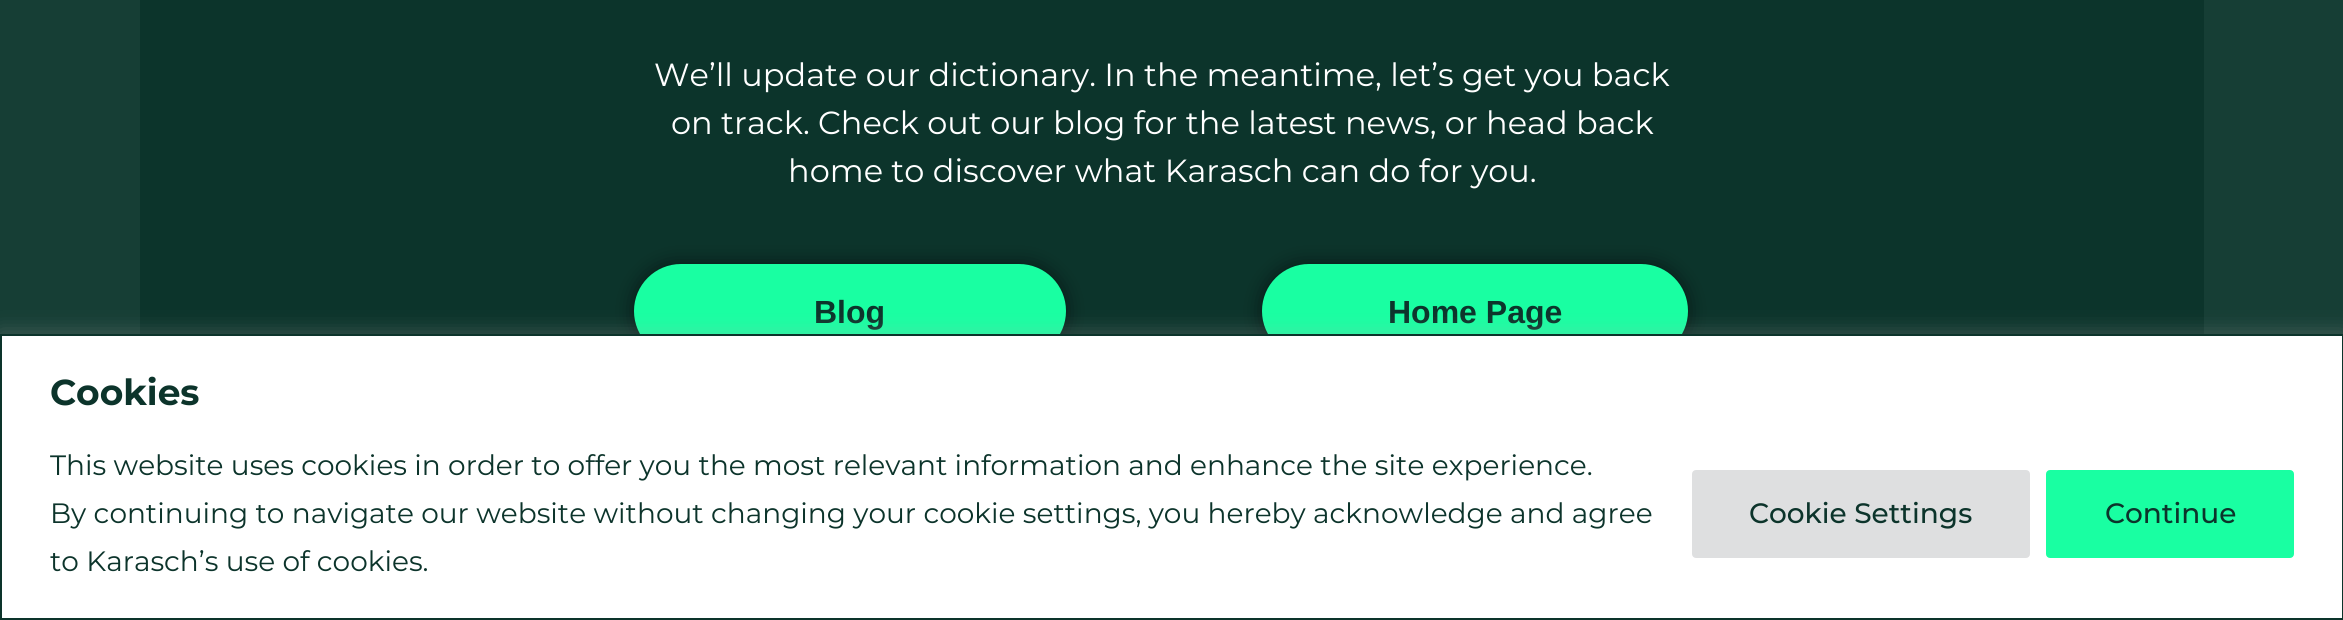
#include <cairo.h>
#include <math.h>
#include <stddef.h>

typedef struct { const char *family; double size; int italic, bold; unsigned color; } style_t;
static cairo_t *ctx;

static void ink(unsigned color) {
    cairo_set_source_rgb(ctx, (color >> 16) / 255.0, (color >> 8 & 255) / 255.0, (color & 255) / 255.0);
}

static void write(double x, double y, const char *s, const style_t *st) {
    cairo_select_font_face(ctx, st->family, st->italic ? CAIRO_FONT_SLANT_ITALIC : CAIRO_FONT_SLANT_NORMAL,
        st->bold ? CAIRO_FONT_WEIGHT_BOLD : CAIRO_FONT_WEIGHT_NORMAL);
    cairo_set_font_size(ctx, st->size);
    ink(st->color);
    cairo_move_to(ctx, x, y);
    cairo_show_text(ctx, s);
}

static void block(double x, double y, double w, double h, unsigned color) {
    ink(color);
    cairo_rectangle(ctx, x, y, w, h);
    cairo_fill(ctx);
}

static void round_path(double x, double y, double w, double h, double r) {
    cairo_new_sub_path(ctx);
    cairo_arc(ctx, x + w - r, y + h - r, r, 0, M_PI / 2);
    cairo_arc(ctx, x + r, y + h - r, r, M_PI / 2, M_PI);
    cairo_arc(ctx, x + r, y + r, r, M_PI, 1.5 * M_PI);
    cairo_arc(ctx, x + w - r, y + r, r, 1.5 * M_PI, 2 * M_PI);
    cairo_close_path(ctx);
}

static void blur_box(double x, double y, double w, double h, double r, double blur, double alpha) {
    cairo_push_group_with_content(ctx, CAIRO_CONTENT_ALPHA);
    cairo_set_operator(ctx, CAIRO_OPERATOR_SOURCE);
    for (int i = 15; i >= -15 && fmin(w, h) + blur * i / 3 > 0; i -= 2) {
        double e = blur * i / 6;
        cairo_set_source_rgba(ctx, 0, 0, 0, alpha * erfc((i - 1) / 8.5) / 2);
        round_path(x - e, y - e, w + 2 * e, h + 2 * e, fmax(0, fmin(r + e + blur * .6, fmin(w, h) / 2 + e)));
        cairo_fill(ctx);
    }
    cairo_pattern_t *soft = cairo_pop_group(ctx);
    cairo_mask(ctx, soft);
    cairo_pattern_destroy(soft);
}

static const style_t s1 = {"Montserrat", 32, 0, 0, 0xffffff};
static const style_t s2 = {"Liberation Sans", 32, 0, 1, 0x0c342b};
static const style_t s3 = {"Montserrat", 36, 0, 1, 0x0c342b};
static const style_t s4 = {"Montserrat", 28, 0, 0, 0x0c342b};
static const style_t s5 = {"Montserrat Medium", 28, 0, 0, 0x0c342b};

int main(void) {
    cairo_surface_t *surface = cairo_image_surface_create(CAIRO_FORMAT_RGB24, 2343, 620);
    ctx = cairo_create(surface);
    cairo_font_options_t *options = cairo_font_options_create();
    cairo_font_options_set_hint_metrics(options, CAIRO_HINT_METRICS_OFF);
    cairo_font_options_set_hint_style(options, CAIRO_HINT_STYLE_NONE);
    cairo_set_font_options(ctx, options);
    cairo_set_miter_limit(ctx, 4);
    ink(0x163e35);
    cairo_paint(ctx);
    block(140, 0, 2064, 334, 0x0c342b);
    write(654, 86, "We’ll update our dictionary. In the meantime, let’s get you back", &s1);
    write(671, 134, "on track. Check out our blog for the latest news, or head back", &s1);
    write(788, 182, "home to discover what Karasch can do for you.", &s1);
    ink(0x000000);
    blur_box(634, 264, 432, 94, 47, 10, 0.5);
    ink(0x19ffa2);
    round_path(635, 265, 430, 92, 46);
    cairo_fill_preserve(ctx);
    cairo_stroke(ctx);
    write(814, 323, "Blog", &s2);
    ink(0x000000);
    blur_box(1262, 264, 426, 94, 47, 10, 0.5);
    ink(0x19ffa2);
    round_path(1263, 265, 424, 92, 46);
    cairo_fill_preserve(ctx);
    cairo_stroke(ctx);
    write(1388, 323, "Home Page", &s2);
    ink(0xacabab);
    blur_box(0, 332, 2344, 286, 0, 10, 0.3);
    ink(0xffffff);
    cairo_rectangle(ctx, 1, 335, 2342, 284);
    cairo_fill_preserve(ctx);
    ink(0x0c342b);
    cairo_stroke(ctx);
    write(50, 405, "Cookies", &s3);
    write(50, 475, "This website uses cookies in order to offer you the most relevant information and enhance the site experience.", &s4);
    write(50, 523, "By continuing to navigate our website without changing your cookie settings, you hereby acknowledge and agree", &s4);
    write(50, 571, "to Karasch’s use of cookies.", &s4);
    ink(0xdedfe0);
    round_path(1694, 472, 334, 84, 2);
    cairo_fill_preserve(ctx);
    cairo_set_line_width(ctx, 4);
    cairo_stroke(ctx);
    write(1749, 523, "Cookie Settings", &s5);
    ink(0x19ffa2);
    round_path(2048, 472, 244, 84, 2);
    cairo_fill_preserve(ctx);
    cairo_stroke(ctx);
    write(2105, 523, "Continue", &s5);
    cairo_surface_write_to_png(surface, "screenshot.png");
    cairo_font_options_destroy(options);
    cairo_destroy(ctx);
    cairo_surface_destroy(surface);
    return 0;
}
